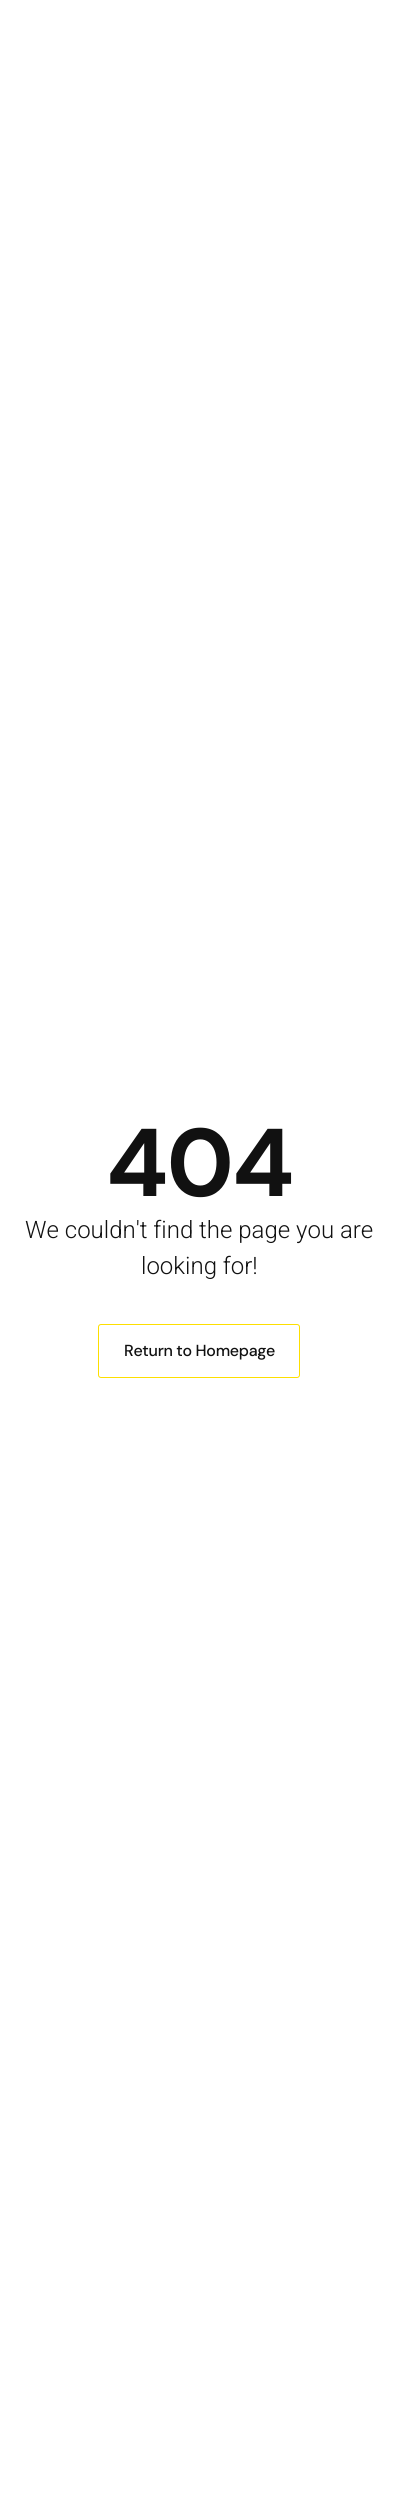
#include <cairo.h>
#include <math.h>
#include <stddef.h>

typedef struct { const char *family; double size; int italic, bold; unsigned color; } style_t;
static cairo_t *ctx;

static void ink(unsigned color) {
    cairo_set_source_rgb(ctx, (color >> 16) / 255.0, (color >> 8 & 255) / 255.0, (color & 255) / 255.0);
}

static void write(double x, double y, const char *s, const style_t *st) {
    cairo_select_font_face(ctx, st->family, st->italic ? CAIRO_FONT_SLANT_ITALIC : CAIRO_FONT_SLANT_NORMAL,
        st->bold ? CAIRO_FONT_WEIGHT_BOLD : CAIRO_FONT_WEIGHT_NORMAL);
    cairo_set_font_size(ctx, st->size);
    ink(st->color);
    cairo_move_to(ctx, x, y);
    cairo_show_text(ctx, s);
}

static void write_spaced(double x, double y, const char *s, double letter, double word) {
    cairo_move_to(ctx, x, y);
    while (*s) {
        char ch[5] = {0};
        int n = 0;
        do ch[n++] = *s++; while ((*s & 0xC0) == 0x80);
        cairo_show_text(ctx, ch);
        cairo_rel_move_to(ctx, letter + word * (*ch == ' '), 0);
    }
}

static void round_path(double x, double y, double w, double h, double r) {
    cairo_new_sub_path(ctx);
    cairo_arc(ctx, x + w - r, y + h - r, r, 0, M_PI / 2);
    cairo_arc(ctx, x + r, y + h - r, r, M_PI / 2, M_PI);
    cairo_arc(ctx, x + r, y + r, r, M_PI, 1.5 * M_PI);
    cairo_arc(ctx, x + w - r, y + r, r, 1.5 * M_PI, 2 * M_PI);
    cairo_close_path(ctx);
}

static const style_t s1 = {"Roboto Light", 24, 0, 0, 0x111111};

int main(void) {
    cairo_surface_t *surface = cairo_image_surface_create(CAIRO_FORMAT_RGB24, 398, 2493);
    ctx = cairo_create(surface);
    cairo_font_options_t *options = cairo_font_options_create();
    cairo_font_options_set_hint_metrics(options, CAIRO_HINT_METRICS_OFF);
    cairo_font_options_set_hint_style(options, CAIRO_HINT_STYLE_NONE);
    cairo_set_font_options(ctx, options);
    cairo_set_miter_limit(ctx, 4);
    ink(0xffffff);
    cairo_paint(ctx);
    cairo_select_font_face(ctx, "DM Sans", CAIRO_FONT_SLANT_NORMAL, CAIRO_FONT_WEIGHT_BOLD);
    cairo_set_font_size(ctx, 96);
    ink(0x111111);
    write_spaced(106, 1196, "404", -2, 0);
    write(25, 1238, "We couldn't find the page you are", &s1);
    write(141, 1274, "looking for!", &s1);
    round_path(98.5, 1324.5, 201, 53, 2.5);
    ink(0xfddf00);
    cairo_set_line_width(ctx, 1);
    cairo_stroke(ctx);
    cairo_select_font_face(ctx, "DM Sans Medium", CAIRO_FONT_SLANT_NORMAL, CAIRO_FONT_WEIGHT_NORMAL);
    cairo_set_font_size(ctx, 16);
    ink(0x111111);
    write_spaced(124, 1356, "Return to Homepage", -0.3, 0);
    cairo_surface_write_to_png(surface, "screenshot.png");
    cairo_font_options_destroy(options);
    cairo_destroy(ctx);
    cairo_surface_destroy(surface);
    return 0;
}
